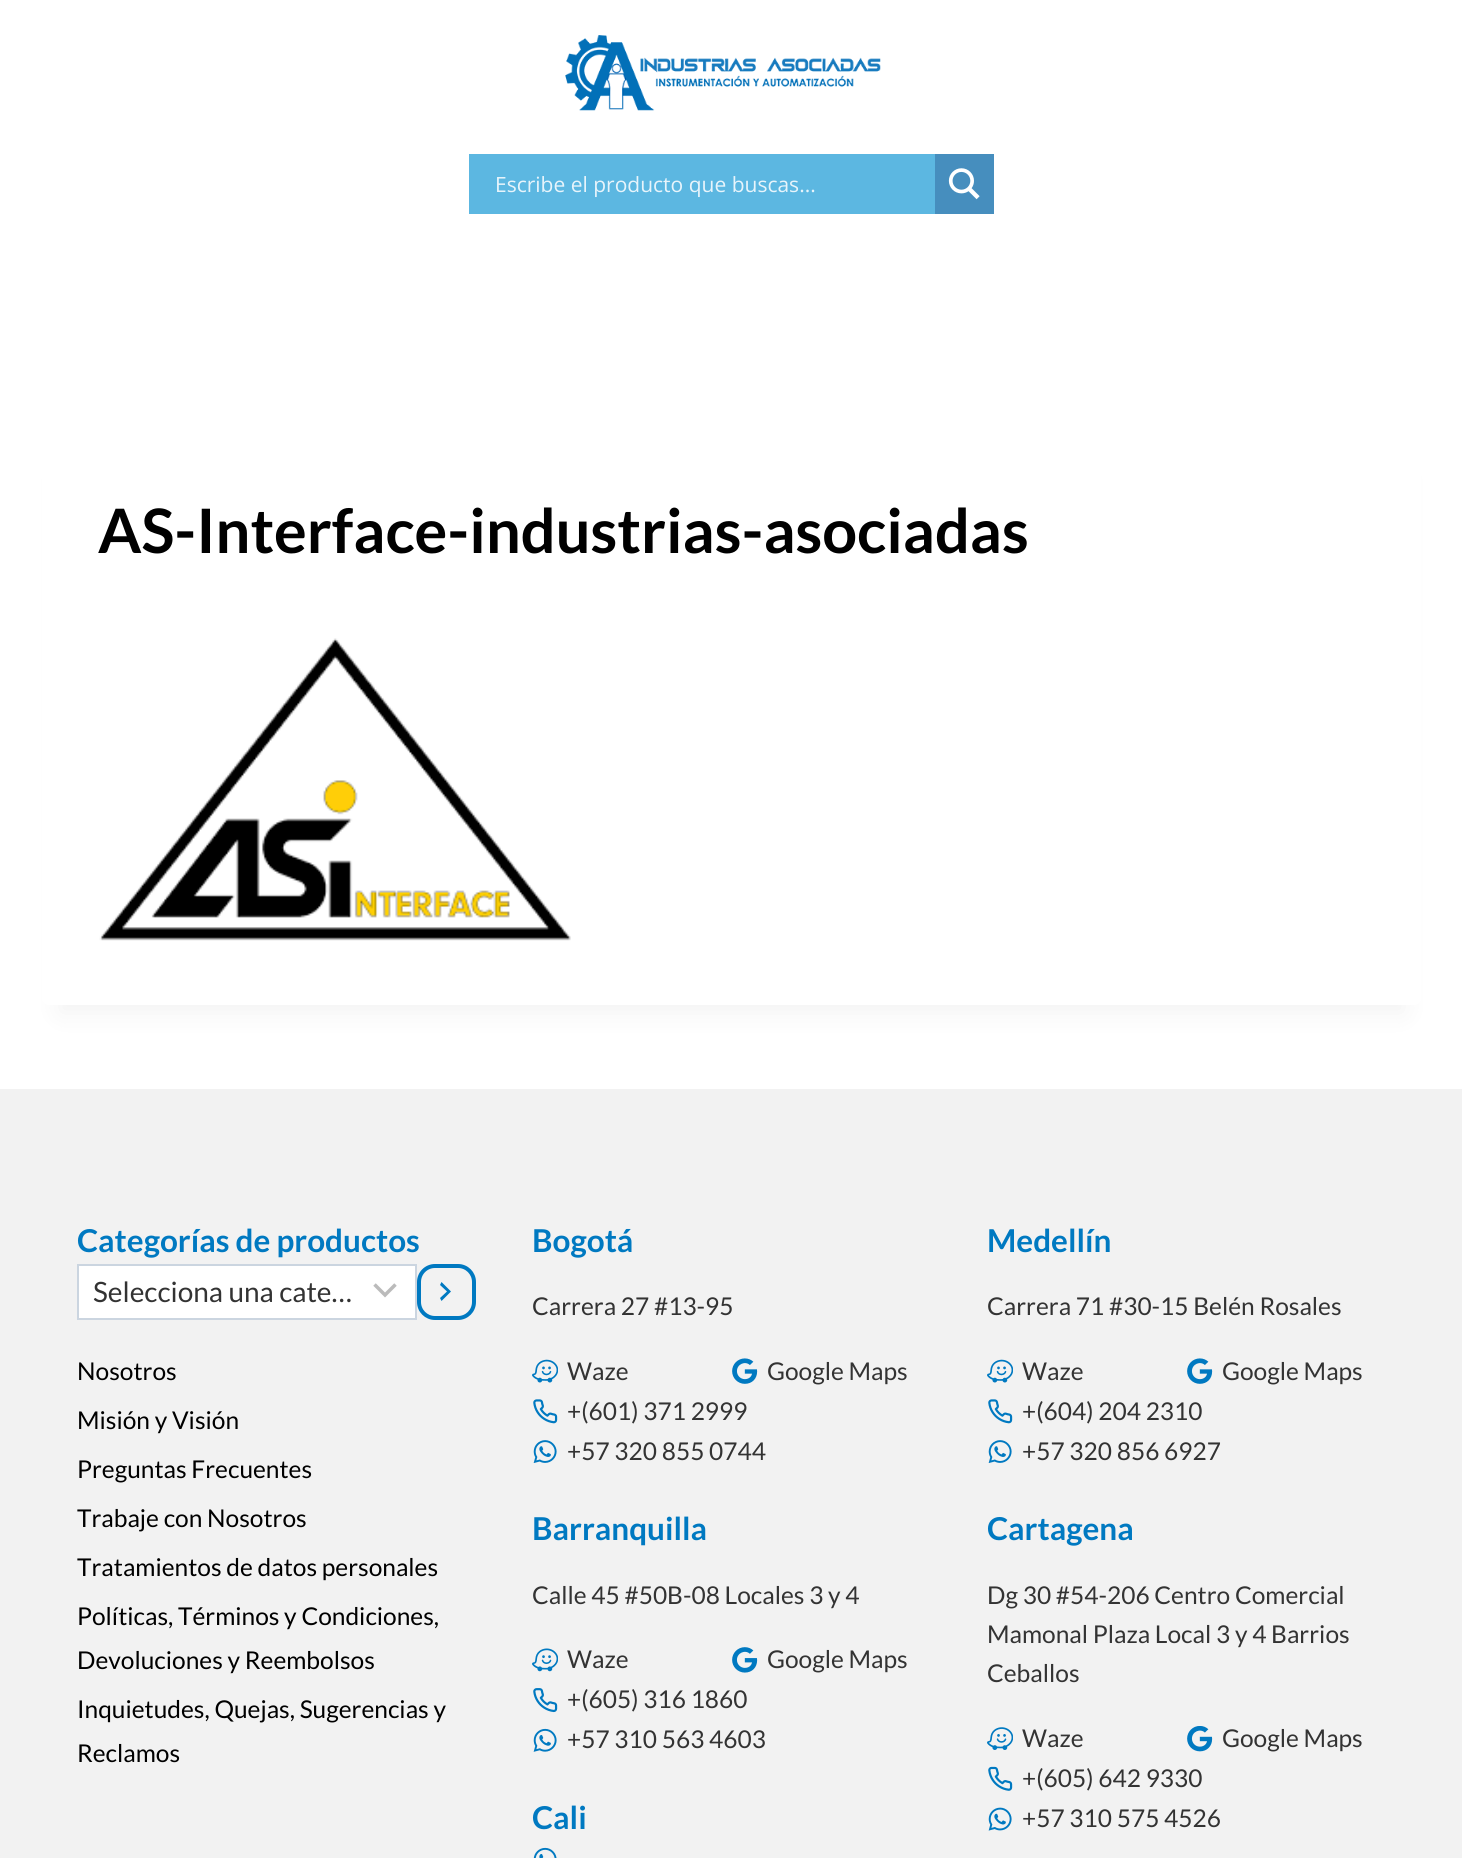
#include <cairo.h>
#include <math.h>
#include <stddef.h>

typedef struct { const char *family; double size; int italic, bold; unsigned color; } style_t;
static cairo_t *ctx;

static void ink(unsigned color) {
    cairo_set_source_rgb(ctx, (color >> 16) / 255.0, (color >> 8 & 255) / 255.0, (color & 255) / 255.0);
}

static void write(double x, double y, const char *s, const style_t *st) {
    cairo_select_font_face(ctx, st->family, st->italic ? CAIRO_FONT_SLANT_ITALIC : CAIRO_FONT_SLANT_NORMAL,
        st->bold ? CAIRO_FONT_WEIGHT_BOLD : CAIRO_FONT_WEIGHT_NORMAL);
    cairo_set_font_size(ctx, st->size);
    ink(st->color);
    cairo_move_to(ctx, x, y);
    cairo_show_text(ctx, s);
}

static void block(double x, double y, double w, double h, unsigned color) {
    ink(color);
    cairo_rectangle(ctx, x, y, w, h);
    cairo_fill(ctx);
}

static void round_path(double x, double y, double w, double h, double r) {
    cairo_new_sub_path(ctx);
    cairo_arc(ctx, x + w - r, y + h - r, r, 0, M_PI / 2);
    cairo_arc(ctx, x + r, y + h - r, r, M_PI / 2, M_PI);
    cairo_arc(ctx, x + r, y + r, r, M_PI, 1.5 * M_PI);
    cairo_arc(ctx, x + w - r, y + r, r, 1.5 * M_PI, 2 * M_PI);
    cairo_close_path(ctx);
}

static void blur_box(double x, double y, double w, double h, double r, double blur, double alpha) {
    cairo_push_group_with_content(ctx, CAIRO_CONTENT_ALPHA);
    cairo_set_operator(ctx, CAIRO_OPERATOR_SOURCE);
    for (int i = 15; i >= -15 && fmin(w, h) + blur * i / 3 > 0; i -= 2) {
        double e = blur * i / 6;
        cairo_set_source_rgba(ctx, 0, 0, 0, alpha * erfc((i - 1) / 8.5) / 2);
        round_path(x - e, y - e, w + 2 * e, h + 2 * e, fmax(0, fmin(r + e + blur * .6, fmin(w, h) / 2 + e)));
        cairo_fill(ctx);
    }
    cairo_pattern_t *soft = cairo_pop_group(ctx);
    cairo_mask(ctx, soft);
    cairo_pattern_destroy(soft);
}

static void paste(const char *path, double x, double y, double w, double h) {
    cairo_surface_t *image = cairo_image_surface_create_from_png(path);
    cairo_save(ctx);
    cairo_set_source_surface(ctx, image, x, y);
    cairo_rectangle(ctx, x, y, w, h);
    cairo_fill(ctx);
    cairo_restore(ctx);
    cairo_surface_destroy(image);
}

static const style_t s1 = {"Open Sans", 21, 0, 0, 0xe7f4fb};
static const style_t s2 = {"Lato", 61.25, 0, 1, 0x000000};
static const style_t s3 = {"Lato", 31.5, 0, 1, 0x0079c1};
static const style_t s4 = {"Lato", 28, 0, 0, 0x333333};
static const style_t s5 = {"Lato", 24.5, 0, 0, 0x000000};
static const style_t s6 = {"Lato", 24.5, 0, 0, 0x333333};

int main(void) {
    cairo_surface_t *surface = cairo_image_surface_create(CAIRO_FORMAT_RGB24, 1462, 1858);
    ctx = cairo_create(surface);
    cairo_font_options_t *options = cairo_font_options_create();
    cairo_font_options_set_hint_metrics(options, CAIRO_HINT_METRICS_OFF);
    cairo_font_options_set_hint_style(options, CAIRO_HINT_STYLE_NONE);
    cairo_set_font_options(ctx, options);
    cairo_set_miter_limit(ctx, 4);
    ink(0xffffff);
    cairo_paint(ctx);
    paste("pic1.png", 565, 35, 316, 76);
    block(469, 154, 466, 60, 0x5cb7e1);
    write(495, 192, "Escribe el producto que buscas...", &s1);
    block(935, 154, 59, 60, 0x468ebe);
    paste("pic2.png", 948, 168, 32, 32);
    ink(0x000000);
    blur_box(60, 478, 1344, 535, 0, 13, 0.05);
    ink(0xffffff);
    round_path(42, 434, 1379, 571, 7);
    cairo_fill(ctx);
    write(98, 553, "AS-Interface-industrias-asociadas", &s2);
    paste("pic3.png", 99, 638, 472, 303);
    block(0, 1089, 1462, 769, 0xf2f2f2);
    write(77, 1252, "Categorías de productos", &s3);
    block(79, 1266, 336, 52, 0xffffff);
    cairo_new_path(ctx);
    cairo_move_to(ctx, 374.5, 1284.5);
    cairo_line_to(ctx, 385, 1295);
    cairo_line_to(ctx, 395.5, 1284.5);
    ink(0xbbbbbb);
    cairo_set_line_width(ctx, 3.5);
    cairo_stroke(ctx);
    cairo_rectangle(ctx, 78, 1265, 338, 54);
    ink(0xcbd5e0);
    cairo_set_line_width(ctx, 2);
    cairo_stroke(ctx);
    write(93, 1302, "Selecciona una cate…", &s4);
    round_path(419, 1266, 55, 52, 16);
    ink(0x0079c1);
    cairo_set_line_width(ctx, 4);
    cairo_stroke(ctx);
    cairo_new_path(ctx);
    cairo_move_to(ctx, 440, 1298);
    cairo_line_to(ctx, 447, 1291.5);
    cairo_line_to(ctx, 440, 1285);
    cairo_line_to(ctx, 441.5, 1282);
    cairo_line_to(ctx, 451, 1291.5);
    cairo_line_to(ctx, 441.5, 1301);
    cairo_close_path(ctx);
    cairo_fill(ctx);
    write(77, 1380, "Nosotros", &s5);
    write(77, 1429, "Misión y Visión", &s5);
    write(77, 1478, "Preguntas Frecuentes", &s5);
    write(77, 1527, "Trabaje con Nosotros", &s5);
    write(77, 1576, "Tratamientos de datos personales", &s5);
    write(77, 1625, "Políticas, Términos y Condiciones,", &s5);
    write(77, 1669, "Devoluciones y Reembolsos", &s5);
    write(77, 1718, "Inquietudes, Quejas, Sugerencias y", &s5);
    write(77, 1762, "Reclamos", &s5);
    write(532, 1252, "Bogotá", &s3);
    write(532, 1315, "Carrera 27 #13-95", &s6);
    paste("pic4.png", 532, 1359, 26, 24);
    write(567, 1380, "Waze", &s6);
    paste("pic5.png", 732, 1358, 26, 26);
    write(767, 1380, "Google Maps", &s6);
    paste("pic6.png", 533, 1399, 25, 25);
    write(567, 1420, "+(601) 371 2999", &s6);
    paste("pic7.png", 533, 1440, 24, 23);
    write(567, 1460, "+57 320 855 0744", &s6);
    write(532, 1540, "Barranquilla", &s3);
    write(532, 1604, "Calle 45 #50B-08 Locales 3 y 4", &s6);
    paste("pic8.png", 532, 1648, 26, 24);
    write(567, 1668, "Waze", &s6);
    paste("pic9.png", 732, 1647, 26, 26);
    write(767, 1668, "Google Maps", &s6);
    paste("pic10.png", 533, 1688, 25, 25);
    write(567, 1708, "+(605) 316 1860", &s6);
    paste("pic11.png", 533, 1728, 24, 24);
    write(567, 1748, "+57 310 563 4603", &s6);
    write(532, 1829, "Cali", &s3);
    paste("pic12.png", 533, 1847, 24, 11);
    write(987, 1252, "Medellín", &s3);
    write(987, 1315, "Carrera 71 #30-15 Belén Rosales", &s6);
    paste("pic4.png", 987, 1359, 26, 24);
    write(1022, 1380, "Waze", &s6);
    paste("pic5.png", 1187, 1358, 26, 26);
    write(1222, 1380, "Google Maps", &s6);
    paste("pic6.png", 988, 1399, 25, 25);
    write(1022, 1420, "+(604) 204 2310", &s6);
    paste("pic7.png", 988, 1440, 24, 23);
    write(1022, 1460, "+57 320 856 6927", &s6);
    write(987, 1540, "Cartagena", &s3);
    write(987, 1604, "Dg 30 #54-206 Centro Comercial", &s6);
    write(987, 1643, "Mamonal Plaza Local 3 y 4 Barrios", &s6);
    write(987, 1682, "Ceballos", &s6);
    paste("pic13.png", 987, 1727, 26, 23);
    write(1022, 1747, "Waze", &s6);
    paste("pic14.png", 1187, 1726, 26, 26);
    write(1222, 1747, "Google Maps", &s6);
    paste("pic15.png", 988, 1766, 25, 25);
    write(1022, 1787, "+(605) 642 9330", &s6);
    paste("pic16.png", 988, 1807, 24, 24);
    write(1022, 1827, "+57 310 575 4526", &s6);
    cairo_surface_write_to_png(surface, "screenshot.png");
    cairo_font_options_destroy(options);
    cairo_destroy(ctx);
    cairo_surface_destroy(surface);
    return 0;
}
